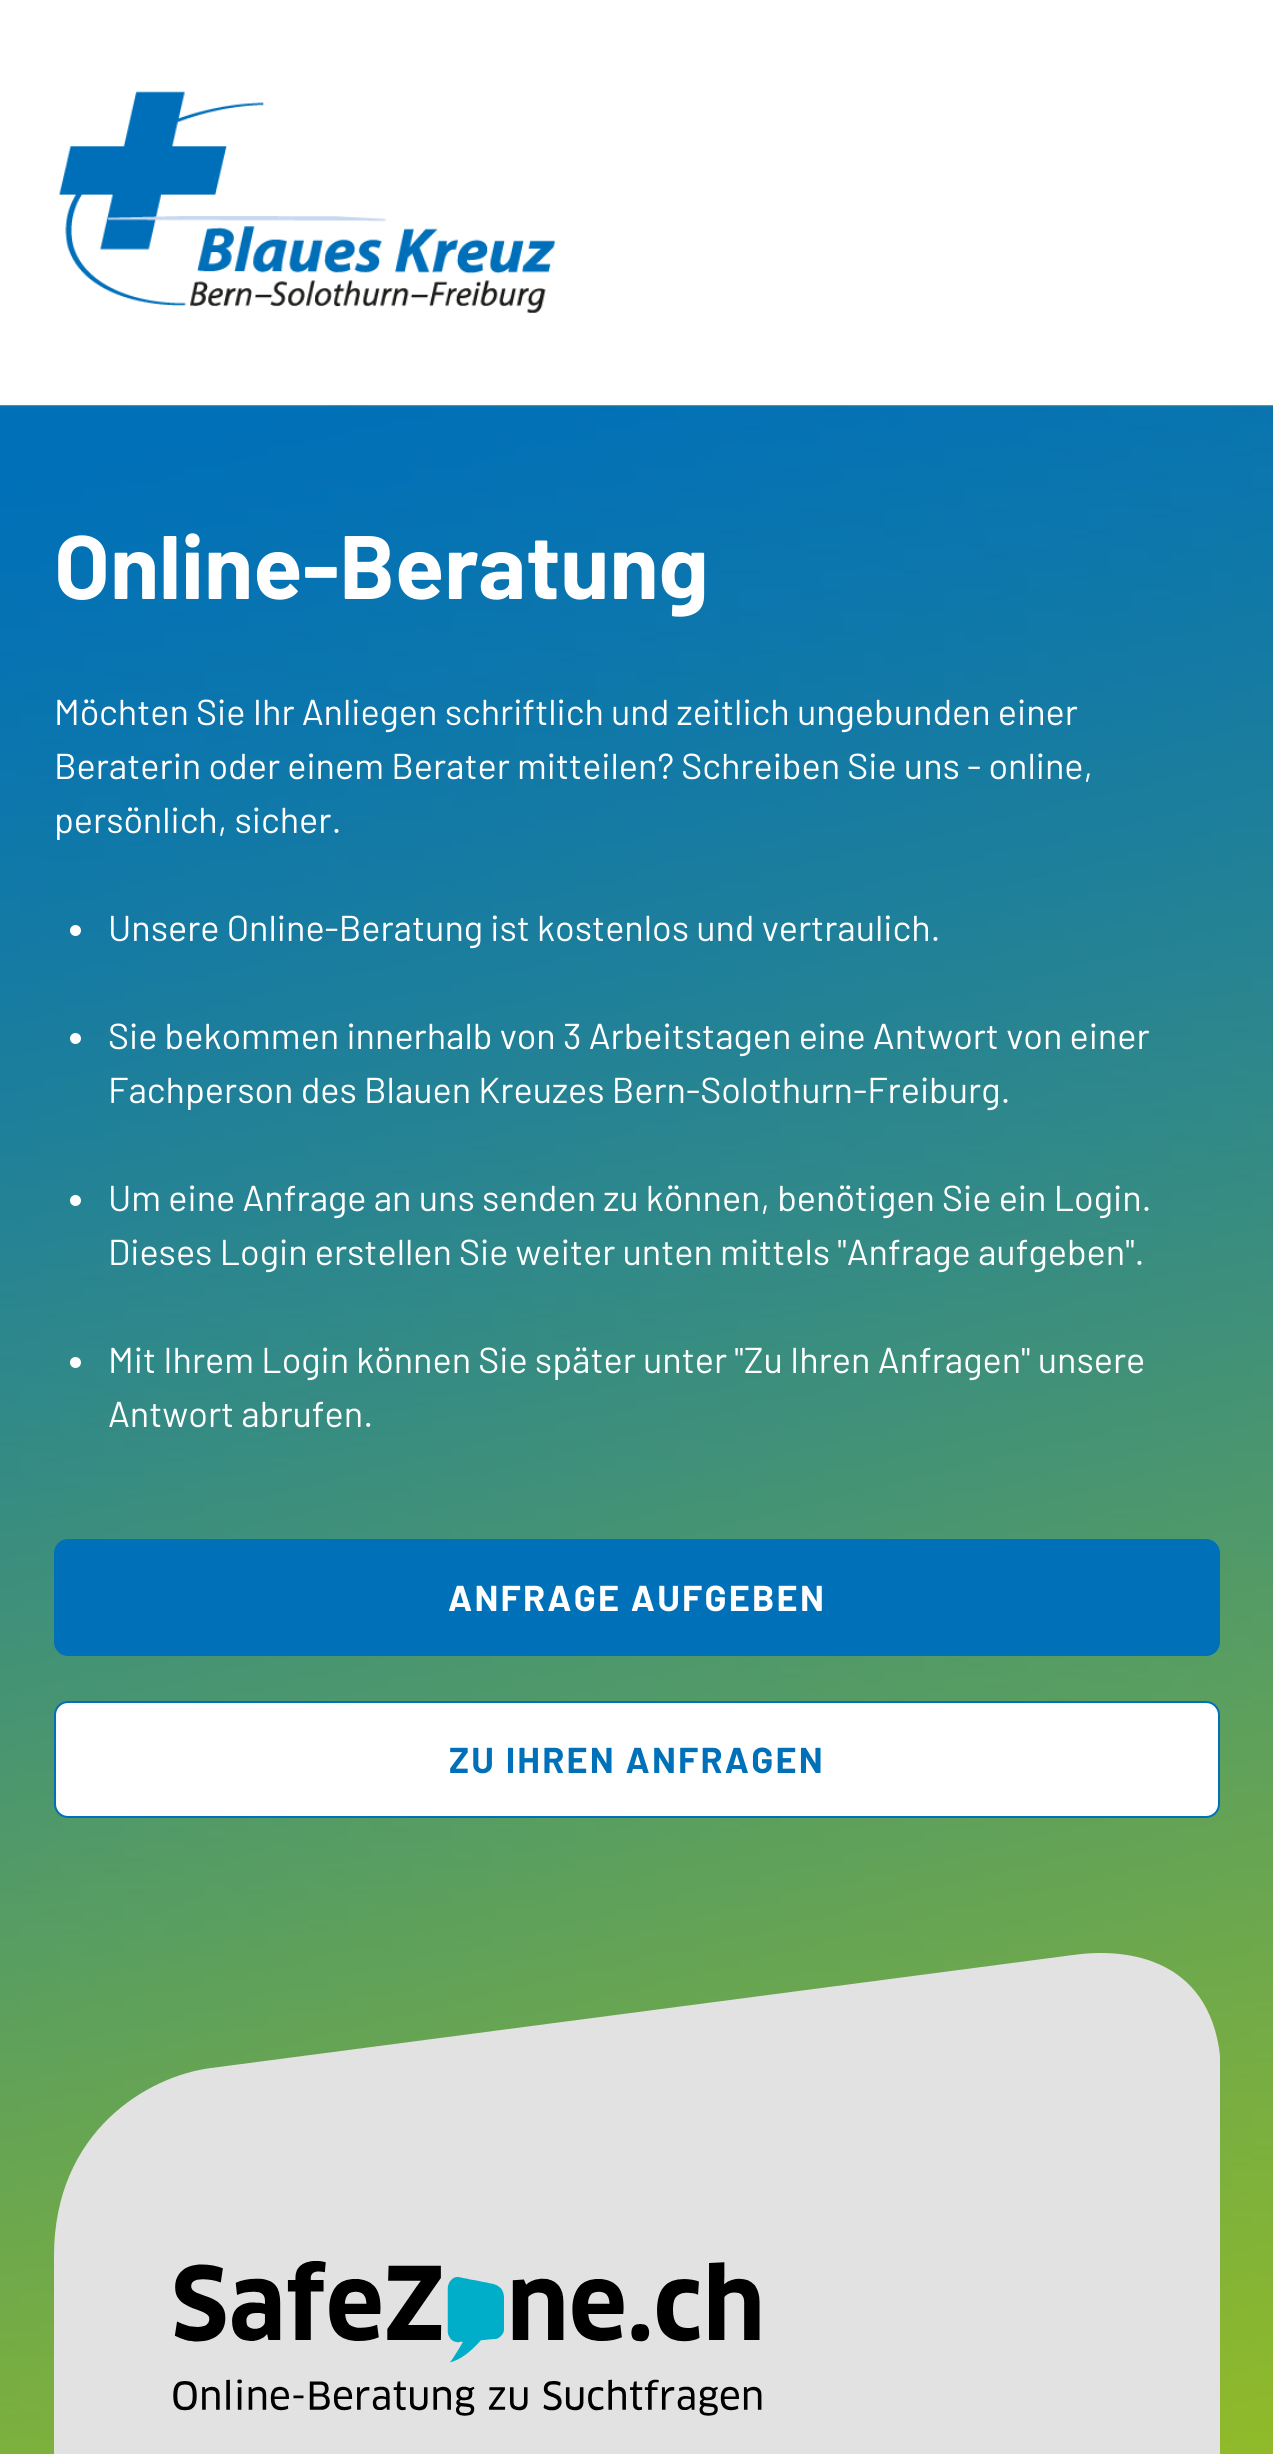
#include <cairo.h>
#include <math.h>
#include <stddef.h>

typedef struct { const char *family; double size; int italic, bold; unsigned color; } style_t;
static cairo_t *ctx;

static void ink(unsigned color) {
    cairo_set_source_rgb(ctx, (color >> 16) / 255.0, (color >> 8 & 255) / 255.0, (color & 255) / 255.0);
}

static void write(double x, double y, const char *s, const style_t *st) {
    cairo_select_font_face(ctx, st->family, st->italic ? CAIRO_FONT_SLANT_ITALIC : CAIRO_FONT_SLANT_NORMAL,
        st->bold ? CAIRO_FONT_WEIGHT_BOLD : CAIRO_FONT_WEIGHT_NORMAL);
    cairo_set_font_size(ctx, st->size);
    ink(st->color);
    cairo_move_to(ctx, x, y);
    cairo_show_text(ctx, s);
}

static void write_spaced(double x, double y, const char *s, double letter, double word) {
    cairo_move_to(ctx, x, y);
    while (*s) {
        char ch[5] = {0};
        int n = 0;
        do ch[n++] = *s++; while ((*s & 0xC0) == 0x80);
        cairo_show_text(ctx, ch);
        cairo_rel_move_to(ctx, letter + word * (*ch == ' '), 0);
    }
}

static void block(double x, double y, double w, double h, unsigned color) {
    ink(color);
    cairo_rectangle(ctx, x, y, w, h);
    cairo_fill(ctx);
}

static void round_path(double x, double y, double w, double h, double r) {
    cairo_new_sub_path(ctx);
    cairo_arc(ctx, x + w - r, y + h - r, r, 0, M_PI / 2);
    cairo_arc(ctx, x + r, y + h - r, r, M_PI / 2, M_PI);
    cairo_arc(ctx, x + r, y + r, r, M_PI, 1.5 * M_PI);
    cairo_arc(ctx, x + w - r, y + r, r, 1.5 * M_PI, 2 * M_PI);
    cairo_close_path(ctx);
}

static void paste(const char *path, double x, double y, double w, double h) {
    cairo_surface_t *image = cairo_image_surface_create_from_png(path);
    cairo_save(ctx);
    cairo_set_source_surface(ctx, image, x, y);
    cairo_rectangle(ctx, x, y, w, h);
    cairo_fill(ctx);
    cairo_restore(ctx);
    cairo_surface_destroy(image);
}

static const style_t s1 = {"Barlow", 90, 0, 1, 0xffffff};
static const style_t s2 = {"Barlow", 36, 0, 0, 0xffffff};

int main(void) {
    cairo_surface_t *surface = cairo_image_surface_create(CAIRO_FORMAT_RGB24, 1273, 2454);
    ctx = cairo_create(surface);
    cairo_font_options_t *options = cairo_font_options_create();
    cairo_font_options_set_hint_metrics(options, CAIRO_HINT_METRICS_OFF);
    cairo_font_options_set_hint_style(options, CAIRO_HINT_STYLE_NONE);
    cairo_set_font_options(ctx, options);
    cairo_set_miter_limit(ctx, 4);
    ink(0xffffff);
    cairo_paint(ctx);
    paste("pic1.png", 59, 91, 496, 222);
    paste("pic2.png", 0, 405, 1273, 2049);
    write(54, 599, "Online-Beratung", &s1);
    write(54, 725, "Möchten Sie Ihr Anliegen schriftlich und zeitlich ungebunden einer", &s2);
    write(54, 779, "Beraterin oder einem Berater mitteilen? Schreiben Sie uns - online,", &s2);
    write(54, 833, "persönlich, sicher.", &s2);
    cairo_new_path(ctx);
    cairo_arc(ctx, 75.5, 930.5, 5.5, 0, 2 * M_PI);
    cairo_fill(ctx);
    write(108, 941, "Unsere Online-Beratung ist kostenlos und vertraulich.", &s2);
    cairo_new_path(ctx);
    cairo_arc(ctx, 75.5, 1038.5, 5.5, 0, 2 * M_PI);
    cairo_fill(ctx);
    write(108, 1049, "Sie bekommen innerhalb von 3 Arbeitstagen eine Antwort von einer", &s2);
    write(108, 1103, "Fachperson des Blauen Kreuzes Bern-Solothurn-Freiburg.", &s2);
    cairo_new_path(ctx);
    cairo_arc(ctx, 75.5, 1200.5, 5.5, 0, 2 * M_PI);
    cairo_fill(ctx);
    write(108, 1211, "Um eine Anfrage an uns senden zu können, benötigen Sie ein Login.", &s2);
    write(108, 1265, "Dieses Login erstellen Sie weiter unten mittels \"Anfrage aufgeben\".", &s2);
    cairo_new_path(ctx);
    cairo_arc(ctx, 75.5, 1362.5, 5.5, 0, 2 * M_PI);
    cairo_fill(ctx);
    write(108, 1373, "Mit Ihrem Login können Sie später unter \"Zu Ihren Anfragen\" unsere", &s2);
    write(108, 1427, "Antwort abrufen.", &s2);
    ink(0x0070b8);
    round_path(55, 1540, 1164, 115, 13);
    cairo_fill_preserve(ctx);
    cairo_stroke(ctx);
    cairo_select_font_face(ctx, "Barlow", CAIRO_FONT_SLANT_NORMAL, CAIRO_FONT_WEIGHT_BOLD);
    ink(0xffffff);
    write_spaced(448, 1611, "ANFRAGE AUFGEBEN", 2.25, 0);
    round_path(55, 1702, 1164, 115, 13);
    cairo_fill_preserve(ctx);
    ink(0x0070b8);
    cairo_stroke(ctx);
    write_spaced(449, 1773, "ZU IHREN ANFRAGEN", 2.25, 0);
    cairo_save(ctx);
    cairo_rectangle(ctx, 54, 1953, 1166, 358);
    cairo_clip(ctx);
    ink(0xe2e2e2);
    cairo_new_path(ctx);
    cairo_move_to(ctx, 1221, 2067);
    cairo_curve_to(ctx, 1215, 1959, 1129, 1947, 1073, 1955);
    cairo_line_to(ctx, 211, 2068);
    cairo_curve_to(ctx, 148, 2076, 54, 2131, 54, 2256);
    cairo_line_to(ctx, 54, 2312);
    cairo_line_to(ctx, 1221, 2312);
    cairo_close_path(ctx);
    cairo_fill(ctx);
    cairo_restore(ctx);
    block(54, 2311, 1166, 143, 0xe2e2e2);
    paste("pic3.png", 173, 2261, 589, 155);
    cairo_surface_write_to_png(surface, "screenshot.png");
    cairo_font_options_destroy(options);
    cairo_destroy(ctx);
    cairo_surface_destroy(surface);
    return 0;
}
